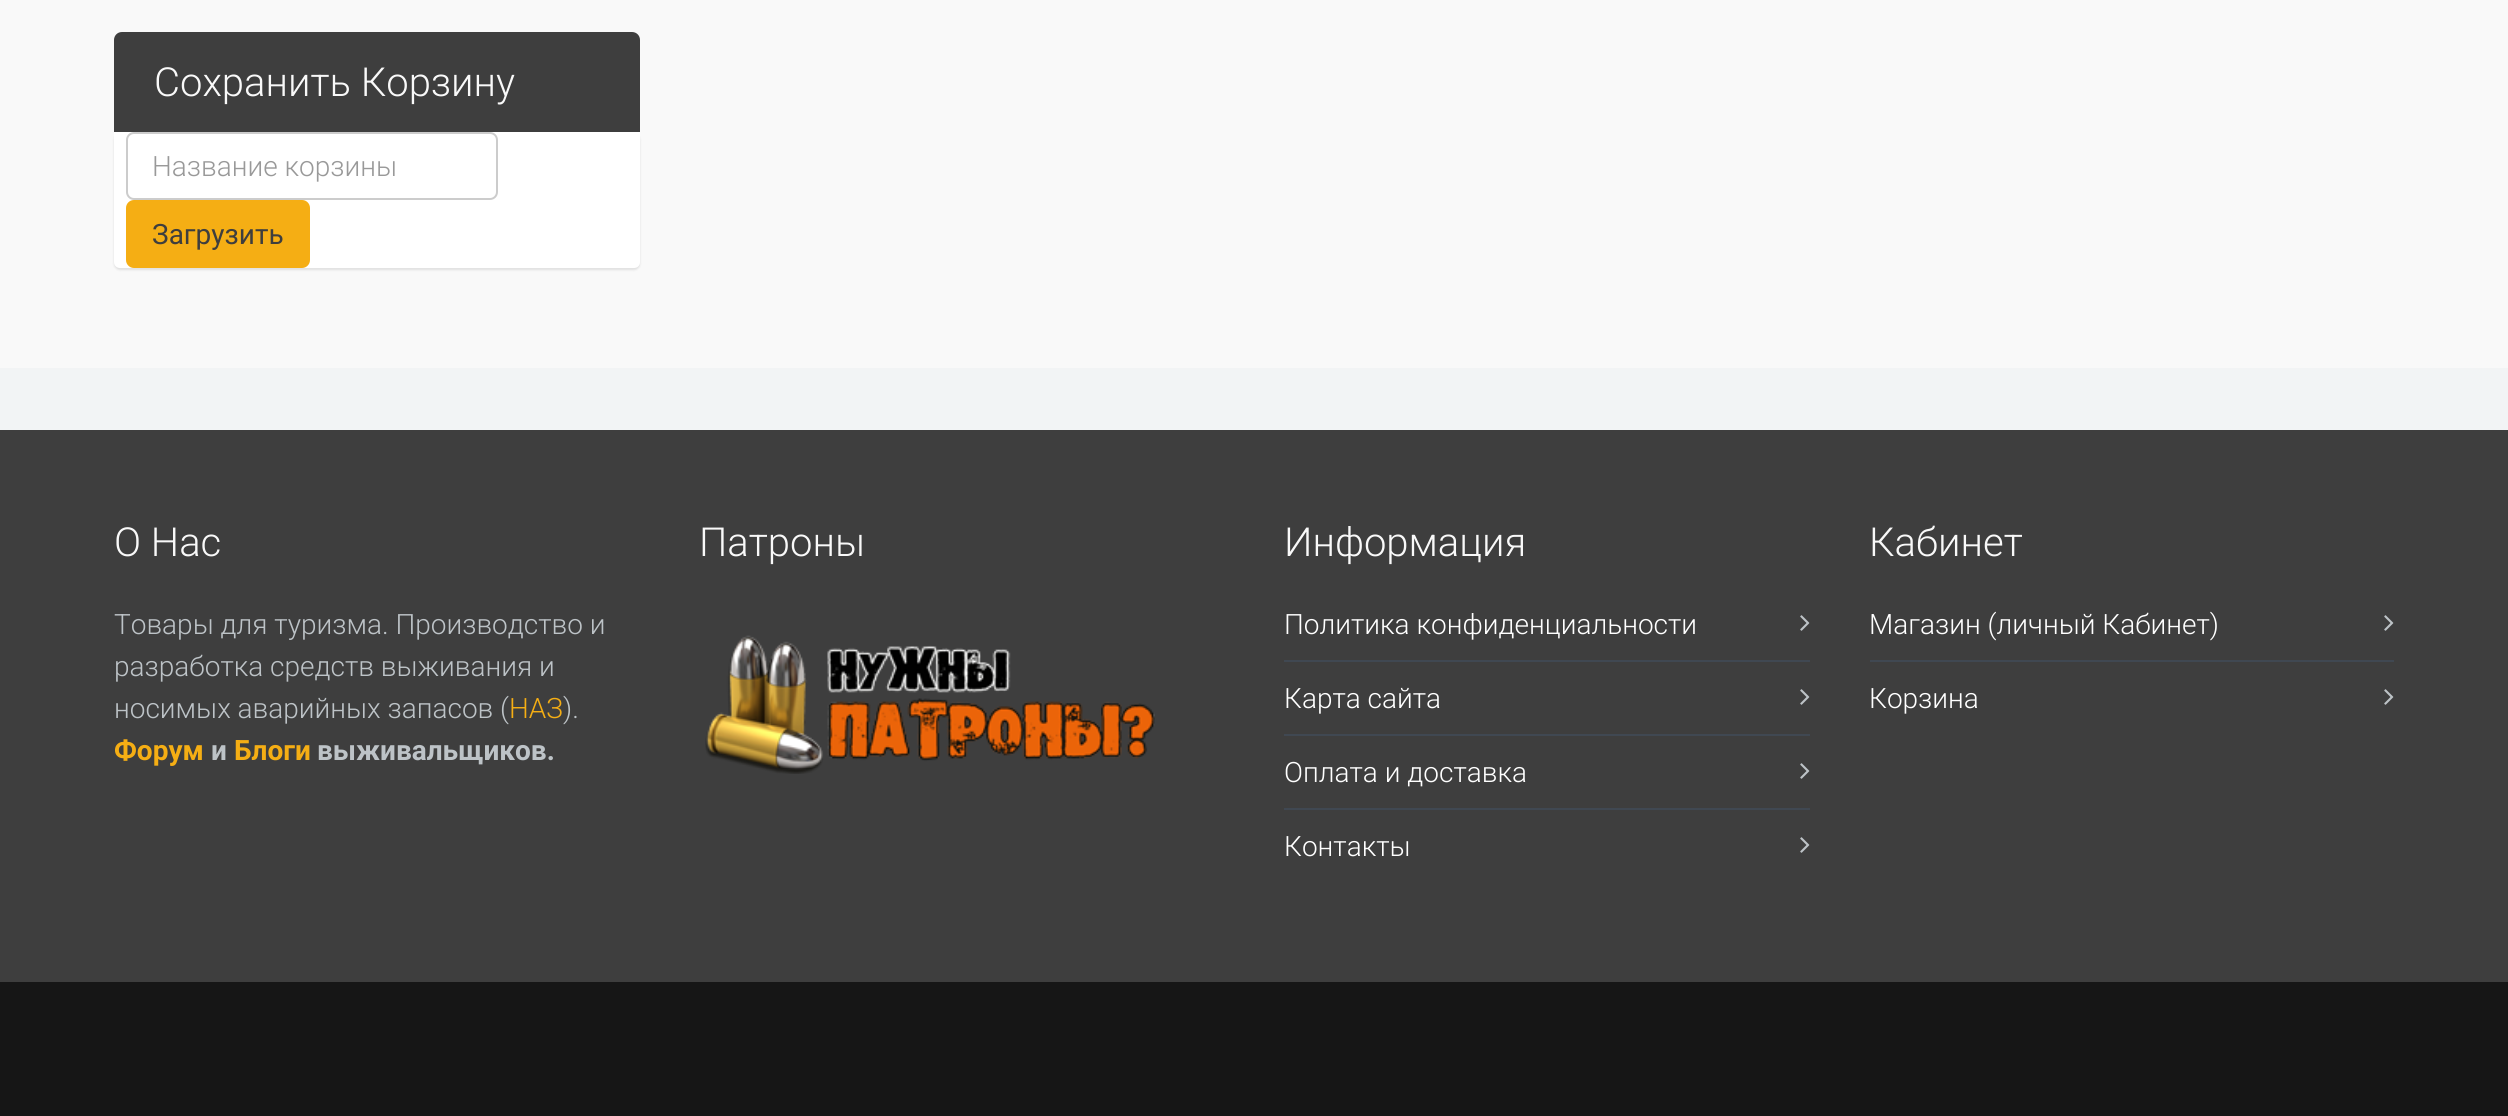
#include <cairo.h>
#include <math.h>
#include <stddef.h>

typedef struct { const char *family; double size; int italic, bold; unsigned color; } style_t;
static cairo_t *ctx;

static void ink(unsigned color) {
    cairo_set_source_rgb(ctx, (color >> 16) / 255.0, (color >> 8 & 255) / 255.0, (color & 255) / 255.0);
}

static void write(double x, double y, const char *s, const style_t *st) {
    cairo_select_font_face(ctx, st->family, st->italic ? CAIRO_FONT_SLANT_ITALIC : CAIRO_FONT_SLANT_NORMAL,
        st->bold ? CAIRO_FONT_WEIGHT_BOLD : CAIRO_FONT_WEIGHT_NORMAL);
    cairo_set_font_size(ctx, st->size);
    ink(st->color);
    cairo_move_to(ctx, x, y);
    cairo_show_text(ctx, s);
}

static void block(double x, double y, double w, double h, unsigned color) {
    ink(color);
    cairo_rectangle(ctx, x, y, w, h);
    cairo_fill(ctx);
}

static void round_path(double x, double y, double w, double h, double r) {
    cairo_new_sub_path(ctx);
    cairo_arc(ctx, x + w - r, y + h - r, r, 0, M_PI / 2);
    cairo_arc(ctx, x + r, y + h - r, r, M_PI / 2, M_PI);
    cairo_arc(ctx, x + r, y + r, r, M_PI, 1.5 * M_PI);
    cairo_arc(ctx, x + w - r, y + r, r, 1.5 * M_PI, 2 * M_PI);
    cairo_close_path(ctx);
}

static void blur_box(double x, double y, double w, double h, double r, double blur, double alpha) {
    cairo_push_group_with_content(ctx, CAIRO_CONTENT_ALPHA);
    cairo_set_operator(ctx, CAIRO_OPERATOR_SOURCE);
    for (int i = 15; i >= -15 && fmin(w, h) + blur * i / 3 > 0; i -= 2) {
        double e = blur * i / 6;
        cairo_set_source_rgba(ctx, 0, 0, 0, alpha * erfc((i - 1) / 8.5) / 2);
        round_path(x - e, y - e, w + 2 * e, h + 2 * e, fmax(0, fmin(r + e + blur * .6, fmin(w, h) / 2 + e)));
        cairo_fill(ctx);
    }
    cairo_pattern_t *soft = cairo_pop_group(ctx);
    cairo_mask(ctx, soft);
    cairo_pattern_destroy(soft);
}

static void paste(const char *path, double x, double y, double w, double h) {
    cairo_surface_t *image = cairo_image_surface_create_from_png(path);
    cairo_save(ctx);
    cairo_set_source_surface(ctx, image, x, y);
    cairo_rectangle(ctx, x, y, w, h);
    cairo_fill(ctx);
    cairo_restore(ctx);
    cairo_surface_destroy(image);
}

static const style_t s1 = {"Roboto Light", 40, 0, 0, 0xf9f9f9};
static const style_t s2 = {"Roboto Light", 28, 0, 0, 0x999999};
static const style_t s3 = {"Roboto", 28, 0, 0, 0x3e3e3e};
static const style_t s4 = {"Roboto Light", 28, 0, 0, 0xbdc3c7};
static const style_t s5 = {"Roboto Light", 28, 0, 0, 0xf5ae14};
static const style_t s6 = {"Roboto", 28, 0, 1, 0xf5ae14};
static const style_t s7 = {"Roboto", 28, 0, 1, 0xbdc3c7};
static const style_t s8 = {"Roboto Light", 28, 0, 0, 0xffffff};

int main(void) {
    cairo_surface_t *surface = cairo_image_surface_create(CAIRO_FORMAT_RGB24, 2508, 1116);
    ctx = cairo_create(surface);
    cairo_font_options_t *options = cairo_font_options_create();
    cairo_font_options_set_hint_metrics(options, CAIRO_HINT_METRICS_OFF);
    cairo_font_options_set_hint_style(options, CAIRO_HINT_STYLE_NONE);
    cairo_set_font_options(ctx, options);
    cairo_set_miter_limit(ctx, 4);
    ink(0xf2f4f5);
    cairo_paint(ctx);
    block(0, 0, 2508, 368, 0xf9f9f9);
    ink(0x3e3e3e);
    cairo_new_path(ctx);
    cairo_move_to(ctx, 122, 32);
    cairo_line_to(ctx, 632, 32);
    cairo_curve_to(ctx, 636.5, 32, 640, 35.5, 640, 40);
    cairo_line_to(ctx, 640, 132);
    cairo_line_to(ctx, 114, 132);
    cairo_line_to(ctx, 114, 40);
    cairo_curve_to(ctx, 114, 35.5, 117.5, 32, 122, 32);
    cairo_close_path(ctx);
    cairo_fill(ctx);
    write(154, 96, "Сохранить Корзину", &s1);
    ink(0x000000);
    blur_box(114, 134, 526, 136, 6, 1, 0.1);
    ink(0xffffff);
    cairo_new_path(ctx);
    cairo_move_to(ctx, 114, 132);
    cairo_line_to(ctx, 640, 132);
    cairo_line_to(ctx, 640, 262);
    cairo_curve_to(ctx, 640, 265.5, 637.5, 268, 634, 268);
    cairo_line_to(ctx, 120, 268);
    cairo_curve_to(ctx, 116.5, 268, 114, 265.5, 114, 262);
    cairo_close_path(ctx);
    cairo_fill(ctx);
    round_path(127, 133, 370, 66, 7);
    ink(0xcccccc);
    cairo_stroke(ctx);
    write(152, 176, "Название корзины", &s2);
    ink(0xf5ae14);
    round_path(126, 200, 184, 68, 8);
    cairo_fill(ctx);
    write(152, 244, "Загрузить", &s3);
    block(0, 430, 2508, 552, 0x3e3e3e);
    write(114, 556, "О Нас", &s1);
    write(114, 634, "Товары для туризма. Производство и", &s4);
    write(114, 676, "разработка средств выживания и", &s4);
    write(114, 718, "носимых аварийных запасов (", &s4);
    write(509, 718, "НАЗ", &s5);
    write(563, 718, ").", &s4);
    write(114, 760, "Форум", &s6);
    write(211, 760, "и", &s7);
    write(234, 760, "Блоги", &s6);
    write(317, 760, "выживальщиков.", &s7);
    write(699, 556, "Патроны", &s1);
    paste("pic1.png", 705, 635, 450, 139);
    write(1284, 556, "Информация", &s1);
    write(1284, 634, "Политика конфиденциальности", &s8);
    paste("pic2.png", 1800, 615, 10, 16);
    block(1284, 660, 526, 2, 0x404852);
    write(1284, 708, "Карта сайта", &s8);
    paste("pic2.png", 1800, 689, 10, 16);
    block(1284, 734, 526, 2, 0x404852);
    write(1284, 782, "Оплата и доставка", &s8);
    paste("pic2.png", 1800, 763, 10, 16);
    block(1284, 808, 526, 2, 0x404852);
    write(1284, 856, "Контакты", &s8);
    paste("pic2.png", 1800, 837, 10, 16);
    write(1869, 556, "Кабинет", &s1);
    write(1869, 634, "Магазин (личный Кабинет)", &s8);
    paste("pic2.png", 2384, 615, 10, 16);
    block(1870, 660, 524, 2, 0x404852);
    write(1869, 708, "Корзина", &s8);
    paste("pic2.png", 2384, 689, 10, 16);
    block(0, 982, 2508, 134, 0x161616);
    cairo_surface_write_to_png(surface, "screenshot.png");
    cairo_font_options_destroy(options);
    cairo_destroy(ctx);
    cairo_surface_destroy(surface);
    return 0;
}
